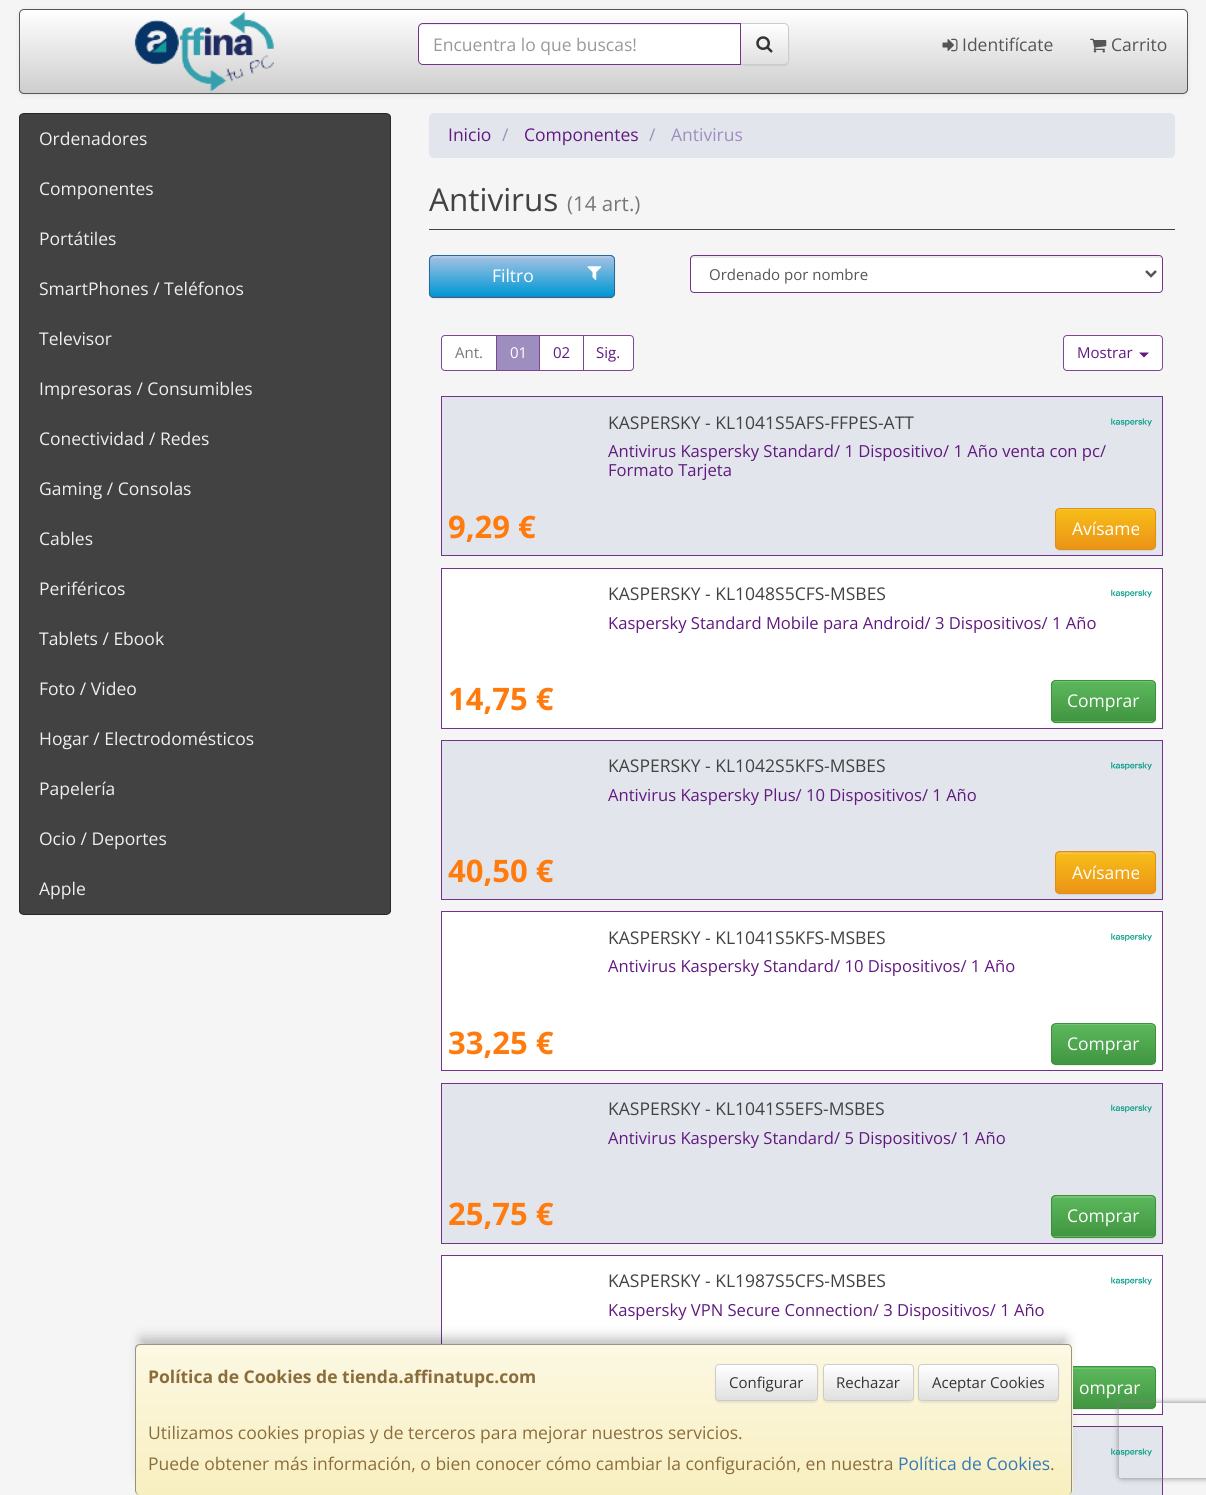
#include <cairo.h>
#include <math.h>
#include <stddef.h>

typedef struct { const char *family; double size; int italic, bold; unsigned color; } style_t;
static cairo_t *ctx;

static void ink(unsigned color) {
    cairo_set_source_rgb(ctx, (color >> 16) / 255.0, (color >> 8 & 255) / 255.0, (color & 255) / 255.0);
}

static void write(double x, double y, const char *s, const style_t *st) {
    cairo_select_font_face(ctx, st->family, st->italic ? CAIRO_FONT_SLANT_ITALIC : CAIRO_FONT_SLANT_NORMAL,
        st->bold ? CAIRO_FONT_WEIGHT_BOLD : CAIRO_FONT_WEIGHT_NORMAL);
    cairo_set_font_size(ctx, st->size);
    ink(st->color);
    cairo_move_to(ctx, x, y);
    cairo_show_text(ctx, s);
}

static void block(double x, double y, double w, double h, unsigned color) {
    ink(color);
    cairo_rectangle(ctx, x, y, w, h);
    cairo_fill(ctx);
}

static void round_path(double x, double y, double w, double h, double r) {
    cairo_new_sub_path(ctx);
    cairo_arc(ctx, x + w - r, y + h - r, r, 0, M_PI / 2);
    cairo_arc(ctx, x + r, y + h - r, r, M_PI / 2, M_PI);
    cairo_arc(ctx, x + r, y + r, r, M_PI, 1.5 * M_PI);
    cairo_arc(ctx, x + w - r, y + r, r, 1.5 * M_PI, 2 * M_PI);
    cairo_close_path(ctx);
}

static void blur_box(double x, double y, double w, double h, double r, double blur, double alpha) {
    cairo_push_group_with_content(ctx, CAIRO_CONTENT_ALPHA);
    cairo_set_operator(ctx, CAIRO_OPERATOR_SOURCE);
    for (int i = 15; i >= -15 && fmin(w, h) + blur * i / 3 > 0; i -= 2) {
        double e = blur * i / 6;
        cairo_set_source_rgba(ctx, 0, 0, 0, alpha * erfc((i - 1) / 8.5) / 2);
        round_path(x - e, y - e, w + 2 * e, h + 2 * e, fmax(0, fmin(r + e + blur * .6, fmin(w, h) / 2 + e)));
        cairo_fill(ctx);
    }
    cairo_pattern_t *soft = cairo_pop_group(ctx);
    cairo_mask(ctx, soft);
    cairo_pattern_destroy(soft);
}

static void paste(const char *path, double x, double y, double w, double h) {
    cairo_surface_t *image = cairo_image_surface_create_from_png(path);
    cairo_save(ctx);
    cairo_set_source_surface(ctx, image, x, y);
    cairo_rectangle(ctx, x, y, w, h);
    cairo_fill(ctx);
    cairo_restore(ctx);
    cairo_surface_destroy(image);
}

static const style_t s1 = {"Open Sans", 17.5, 0, 0, 0x999999};
static const style_t s2 = {"Open Sans", 17.5, 0, 0, 0x555555};
static const style_t s3 = {"Open Sans", 17.5, 0, 0, 0xefefef};
static const style_t s4 = {"Open Sans", 17.5, 0, 0, 0x61197f};
static const style_t s5 = {"Open Sans", 17.5, 0, 0, 0x9e8ebf};
static const style_t s6 = {"Open Sans", 31.5, 0, 0, 0x424242};
static const style_t s7 = {"Open Sans", 20.5, 0, 0, 0x777777};
static const style_t s8 = {"Open Sans", 17.5, 0, 0, 0xffffff};
static const style_t s9 = {"Open Sans", 15, 0, 0, 0x555555};
static const style_t s10 = {"Open Sans", 15, 0, 0, 0x777777};
static const style_t s11 = {"Open Sans", 15, 0, 0, 0xffffff};
static const style_t s12 = {"Open Sans", 15, 0, 0, 0x61197f};
static const style_t s13 = {"Open Sans", 17.5, 0, 0, 0x424242};
static const style_t s14 = {"Open Sans", 16.6, 0, 0, 0x61197f};
static const style_t s15 = {"Open Sans", 31, 0, 1, 0xff7b0d};
static const style_t s16 = {"Open Sans", 17.5, 0, 1, 0x8a6d3b};
static const style_t s17 = {"Open Sans", 15, 0, 0, 0x333333};
static const style_t s18 = {"Open Sans", 17.5, 0, 0, 0x8a6d3b};
static const style_t s19 = {"Open Sans", 17.5, 0, 0, 0x337ab7};

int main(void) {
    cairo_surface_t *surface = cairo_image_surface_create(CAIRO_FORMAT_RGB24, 1206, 1495);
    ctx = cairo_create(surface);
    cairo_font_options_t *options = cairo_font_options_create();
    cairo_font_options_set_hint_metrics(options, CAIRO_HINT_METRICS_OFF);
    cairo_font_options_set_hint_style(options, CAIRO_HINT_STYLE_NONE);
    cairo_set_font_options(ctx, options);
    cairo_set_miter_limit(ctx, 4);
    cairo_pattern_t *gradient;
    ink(0xf5f5f5);
    cairo_paint(ctx);
    ink(0x000000);
    blur_box(19, 10, 1169, 85, 5, 3, 0.07);
    cairo_save(ctx);
    round_path(19, 9, 1169, 85, 5);
    cairo_clip(ctx);
    gradient = cairo_pattern_create_linear(603, 10, 603, 93);
    cairo_pattern_add_color_stop_rgba(gradient, 0, 1, 1, 1, 1);
    cairo_pattern_add_color_stop_rgba(gradient, 1, 0.808, 0.808, 0.808, 1);
    cairo_set_source(ctx, gradient);
    cairo_pattern_destroy(gradient);
    cairo_rectangle(ctx, 19, 10, 1169, 83);
    cairo_fill(ctx);
    cairo_restore(ctx);
    round_path(19.5, 9.5, 1168, 84, 4.5);
    ink(0x555555);
    cairo_set_line_width(ctx, 1);
    cairo_stroke(ctx);
    paste("pic1.png", 134, 11, 140, 81);
    ink(0x000000);
    blur_box(740, 24, 49, 42, 5, 0.5, 0.07);
    cairo_save(ctx);
    cairo_new_path(ctx);
    cairo_move_to(ctx, 740, 23);
    cairo_line_to(ctx, 784, 23);
    cairo_curve_to(ctx, 787, 23, 789, 25, 789, 28);
    cairo_line_to(ctx, 789, 60);
    cairo_curve_to(ctx, 789, 63, 787, 65, 784, 65);
    cairo_line_to(ctx, 740, 65);
    cairo_close_path(ctx);
    cairo_clip(ctx);
    gradient = cairo_pattern_create_linear(764, 24, 764, 64);
    cairo_pattern_add_color_stop_rgba(gradient, 0, 1, 1, 1, 1);
    cairo_pattern_add_color_stop_rgba(gradient, 1, 0.878, 0.878, 0.878, 1);
    cairo_set_source(ctx, gradient);
    cairo_pattern_destroy(gradient);
    cairo_rectangle(ctx, 741, 24, 48, 40);
    cairo_fill(ctx);
    cairo_restore(ctx);
    cairo_new_path(ctx);
    cairo_move_to(ctx, 740.5, 23.5);
    cairo_line_to(ctx, 784, 23.5);
    cairo_curve_to(ctx, 786.5, 23.5, 788.5, 25.5, 788.5, 28);
    cairo_line_to(ctx, 788.5, 60);
    cairo_curve_to(ctx, 788.5, 62.5, 786.5, 64.5, 784, 64.5);
    cairo_line_to(ctx, 740.5, 64.5);
    cairo_close_path(ctx);
    ink(0xcccccc);
    cairo_stroke(ctx);
    ink(0xffffff);
    cairo_new_path(ctx);
    cairo_move_to(ctx, 423, 23);
    cairo_line_to(ctx, 741, 23);
    cairo_line_to(ctx, 741, 65);
    cairo_line_to(ctx, 423, 65);
    cairo_curve_to(ctx, 420, 65, 418, 63, 418, 60);
    cairo_line_to(ctx, 418, 28);
    cairo_curve_to(ctx, 418, 25, 420, 23, 423, 23);
    cairo_close_path(ctx);
    cairo_fill(ctx);
    ink(0xececec);
    cairo_new_path(ctx);
    cairo_move_to(ctx, 422, 25);
    cairo_line_to(ctx, 740, 25);
    cairo_line_to(ctx, 740, 24);
    cairo_line_to(ctx, 423, 24);
    cairo_curve_to(ctx, 421, 24, 419, 26, 419, 28);
    cairo_line_to(ctx, 419, 29);
    cairo_curve_to(ctx, 419, 27, 420, 25, 422, 25);
    cairo_close_path(ctx);
    cairo_fill(ctx);
    cairo_new_path(ctx);
    cairo_move_to(ctx, 423, 23.5);
    cairo_line_to(ctx, 740.5, 23.5);
    cairo_line_to(ctx, 740.5, 64.5);
    cairo_line_to(ctx, 423, 64.5);
    cairo_curve_to(ctx, 420.5, 64.5, 418.5, 62.5, 418.5, 60);
    cairo_line_to(ctx, 418.5, 28);
    cairo_curve_to(ctx, 418.5, 25.5, 420.5, 23.5, 423, 23.5);
    cairo_close_path(ctx);
    ink(0x73338d);
    cairo_stroke(ctx);
    write(433, 51, "Encuentra lo que buscas!", &s1);
    paste("pic2.png", 756, 36, 17, 17);
    paste("pic3.png", 942, 38, 16, 14);
    write(962, 51, "Identifícate", &s2);
    paste("pic4.png", 1090, 38, 17, 15);
    write(1111, 51, "Carrito", &s2);
    cairo_save(ctx);
    round_path(19, 113, 372, 802, 5);
    cairo_clip(ctx);
    block(19, 114, 372, 800, 0x424242);
    cairo_restore(ctx);
    round_path(19.5, 113.5, 371, 801, 4.5);
    ink(0x282828);
    cairo_stroke(ctx);
    write(39, 145, "Ordenadores", &s3);
    write(39, 195, "Componentes", &s3);
    write(39, 245, "Portátiles", &s3);
    write(39, 295, "SmartPhones / Teléfonos", &s3);
    write(39, 345, "Televisor", &s3);
    write(39, 395, "Impresoras / Consumibles", &s3);
    write(39, 445, "Conectividad / Redes", &s3);
    write(39, 495, "Gaming / Consolas", &s3);
    write(39, 545, "Cables", &s3);
    write(39, 595, "Periféricos", &s3);
    write(39, 645, "Tablets / Ebook", &s3);
    write(39, 695, "Foto / Video", &s3);
    write(39, 745, "Hogar / Electrodomésticos", &s3);
    write(39, 795, "Papelería", &s3);
    write(39, 845, "Ocio / Deportes", &s3);
    write(39, 895, "Apple", &s3);
    ink(0xe2e5ec);
    round_path(429, 113, 746, 45, 5);
    cairo_fill(ctx);
    write(448, 141, "Inicio", &s4);
    write(502, 141, "/", &s5);
    write(524, 141, "Componentes", &s4);
    write(649, 141, "/", &s5);
    write(671, 141, "Antivirus", &s5);
    block(429, 229, 746, 1, 0x424242);
    write(429, 211, "Antivirus", &s6);
    write(567, 211, "(14 art.)", &s7);
    ink(0x000000);
    blur_box(429, 256, 186, 43, 5, 0.5, 0.07);
    ink(0x337ab7);
    round_path(429, 255, 186, 43, 5);
    cairo_fill(ctx);
    cairo_save(ctx);
    round_path(429, 255, 186, 43, 5);
    cairo_clip(ctx);
    gradient = cairo_pattern_create_linear(522, 256, 522, 296);
    cairo_pattern_add_color_stop_rgba(gradient, 0, 0.647, 0.761, 0.89, 1);
    cairo_pattern_add_color_stop_rgba(gradient, 1, 0, 0.596, 0.831, 1);
    cairo_set_source(ctx, gradient);
    cairo_pattern_destroy(gradient);
    cairo_rectangle(ctx, 429, 256, 186, 40);
    cairo_fill(ctx);
    cairo_restore(ctx);
    cairo_set_source_rgba(ctx, 1, 1, 1, 0.15);
    cairo_new_path(ctx);
    cairo_move_to(ctx, 434, 258);
    cairo_line_to(ctx, 610, 258);
    cairo_curve_to(ctx, 612, 258, 614, 259, 614, 261);
    cairo_curve_to(ctx, 614, 258, 613, 256, 610, 256);
    cairo_line_to(ctx, 433, 256);
    cairo_curve_to(ctx, 431, 257, 430, 259, 430, 261);
    cairo_curve_to(ctx, 430, 259, 432, 258, 434, 258);
    cairo_close_path(ctx);
    cairo_fill(ctx);
    round_path(429.5, 255.5, 185, 42, 4.5);
    ink(0x2b669a);
    cairo_stroke(ctx);
    write(492, 282, "Filtro", &s8);
    paste("pic5.png", 587, 266, 15, 14);
    round_path(690, 255, 473, 38, 4);
    cairo_fill(ctx);
    ink(0xececec);
    cairo_new_path(ctx);
    cairo_move_to(ctx, 694, 258);
    cairo_line_to(ctx, 1159, 258);
    cairo_curve_to(ctx, 1160, 258, 1161, 259, 1161, 260);
    cairo_curve_to(ctx, 1161, 258, 1161, 256, 1158, 256);
    cairo_line_to(ctx, 694, 256);
    cairo_line_to(ctx, 691, 257);
    cairo_line_to(ctx, 691, 260);
    cairo_curve_to(ctx, 691, 259, 692, 258, 694, 258);
    cairo_close_path(ctx);
    cairo_fill(ctx);
    round_path(690.5, 255.5, 472, 37, 3.5);
    ink(0x73338d);
    cairo_stroke(ctx);
    cairo_new_path(ctx);
    cairo_move_to(ctx, 1146, 271);
    cairo_line_to(ctx, 1151, 276);
    cairo_line_to(ctx, 1156, 271);
    ink(0x555555);
    cairo_set_line_width(ctx, 2.5);
    cairo_stroke(ctx);
    write(709, 280, "Ordenado por nombre", &s9);
    ink(0xffffff);
    cairo_new_path(ctx);
    cairo_move_to(ctx, 445, 335.5);
    cairo_line_to(ctx, 497.5, 335.5);
    cairo_line_to(ctx, 497.5, 370.5);
    cairo_line_to(ctx, 445, 370.5);
    cairo_curve_to(ctx, 443, 370.5, 441.5, 369, 441.5, 367);
    cairo_line_to(ctx, 441.5, 339);
    cairo_curve_to(ctx, 441.5, 337, 443, 335.5, 445, 335.5);
    cairo_close_path(ctx);
    cairo_fill_preserve(ctx);
    ink(0x7f4697);
    cairo_set_line_width(ctx, 1);
    cairo_stroke(ctx);
    write(455, 358, "Ant.", &s10);
    ink(0xffffff);
    cairo_rectangle(ctx, 539.5, 335.5, 44, 35);
    cairo_fill_preserve(ctx);
    ink(0x7f4697);
    cairo_stroke(ctx);
    ink(0x9e8ebf);
    cairo_rectangle(ctx, 496.5, 335.5, 43, 35);
    cairo_fill_preserve(ctx);
    ink(0x7f4697);
    cairo_stroke(ctx);
    write(510, 358, "01", &s11);
    write(553, 358, "02", &s12);
    ink(0xffffff);
    cairo_new_path(ctx);
    cairo_move_to(ctx, 583.5, 335.5);
    cairo_line_to(ctx, 630, 335.5);
    cairo_curve_to(ctx, 632, 335.5, 633.5, 337, 633.5, 339);
    cairo_line_to(ctx, 633.5, 367);
    cairo_curve_to(ctx, 633.5, 369, 632, 370.5, 630, 370.5);
    cairo_line_to(ctx, 583.5, 370.5);
    cairo_close_path(ctx);
    cairo_fill_preserve(ctx);
    ink(0x7f4697);
    cairo_stroke(ctx);
    write(596, 358, "Sig.", &s12);
    ink(0xffffff);
    round_path(1063.5, 335.5, 99, 35, 3.5);
    cairo_fill_preserve(ctx);
    ink(0x7f4697);
    cairo_stroke(ctx);
    write(1077, 358, "Mostrar", &s12);
    cairo_new_path(ctx);
    cairo_move_to(ctx, 1139, 352.5);
    cairo_line_to(ctx, 1149, 352.5);
    cairo_line_to(ctx, 1144, 357.5);
    cairo_close_path(ctx);
    cairo_fill(ctx);
    ink(0xe2e5ec);
    cairo_new_path(ctx);
    cairo_move_to(ctx, 446, 396);
    cairo_line_to(ctx, 1158, 396);
    cairo_curve_to(ctx, 1161, 396, 1163, 398, 1163, 401);
    cairo_line_to(ctx, 1163, 556);
    cairo_line_to(ctx, 441, 556);
    cairo_line_to(ctx, 441, 401);
    cairo_curve_to(ctx, 441, 398, 443, 396, 446, 396);
    cairo_close_path(ctx);
    cairo_fill(ctx);
    cairo_rectangle(ctx, 441.5, 396.5, 721, 159);
    ink(0x73338d);
    cairo_stroke(ctx);
    write(608, 429, "KASPERSKY - KL1041S5AFS-FFPES-ATT", &s13);
    write(608, 457, "Antivirus Kaspersky Standard/ 1 Dispositivo/ 1 Año venta con pc/", &s14);
    write(608, 476, "Formato Tarjeta", &s14);
    write(448, 538, "9,29 €", &s15);
    ink(0x000000);
    blur_box(1055, 509, 101, 42, 5, 0.5, 0.07);
    cairo_save(ctx);
    round_path(1055, 508, 101, 42, 5);
    cairo_clip(ctx);
    gradient = cairo_pattern_create_linear(1106, 509, 1106, 549);
    cairo_pattern_add_color_stop_rgba(gradient, 0, 0.969, 0.745, 0.098, 1);
    cairo_pattern_add_color_stop_rgba(gradient, 1, 0.922, 0.576, 0.086, 1);
    cairo_set_source(ctx, gradient);
    cairo_pattern_destroy(gradient);
    cairo_rectangle(ctx, 1055, 509, 101, 40);
    cairo_fill(ctx);
    cairo_restore(ctx);
    cairo_set_source_rgba(ctx, 1, 1, 1, 0.15);
    cairo_new_path(ctx);
    cairo_move_to(ctx, 1060, 510);
    cairo_line_to(ctx, 1151, 510);
    cairo_curve_to(ctx, 1153, 510, 1155, 512, 1155, 514);
    cairo_curve_to(ctx, 1155, 505, 1140, 509, 1136, 509);
    cairo_line_to(ctx, 1075, 509);
    cairo_curve_to(ctx, 1071, 509, 1056, 505, 1056, 514);
    cairo_curve_to(ctx, 1056, 512, 1058, 510, 1060, 510);
    cairo_close_path(ctx);
    cairo_fill(ctx);
    round_path(1055.5, 508.5, 100, 41, 4.5);
    ink(0xe38d13);
    cairo_stroke(ctx);
    write(1072, 535, "Avísame", &s8);
    paste("pic6.png", 1111, 418, 41, 9);
    cairo_rectangle(ctx, 441.5, 568.5, 721, 160);
    cairo_fill_preserve(ctx);
    ink(0x73338d);
    cairo_stroke(ctx);
    write(608, 600, "KASPERSKY - KL1048S5CFS-MSBES", &s13);
    write(608, 629, "Kaspersky Standard Mobile para Android/ 3 Dispositivos/ 1 Año", &s14);
    write(448, 710, "14,75 €", &s15);
    ink(0x000000);
    blur_box(1051, 681, 105, 43, 5, 0.5, 0.07);
    ink(0x5cb85c);
    round_path(1051, 680, 105, 43, 5);
    cairo_fill(ctx);
    cairo_save(ctx);
    round_path(1051, 680, 105, 43, 5);
    cairo_clip(ctx);
    gradient = cairo_pattern_create_linear(1104, 681, 1104, 721);
    cairo_pattern_add_color_stop_rgba(gradient, 0, 0.361, 0.722, 0.361, 1);
    cairo_pattern_add_color_stop_rgba(gradient, 1, 0.255, 0.588, 0.255, 1);
    cairo_set_source(ctx, gradient);
    cairo_pattern_destroy(gradient);
    cairo_rectangle(ctx, 1051, 681, 105, 40);
    cairo_fill(ctx);
    cairo_restore(ctx);
    ink(0x74c374);
    cairo_new_path(ctx);
    cairo_move_to(ctx, 1056, 682);
    cairo_line_to(ctx, 1151, 682);
    cairo_curve_to(ctx, 1153, 682, 1155, 684, 1155, 686);
    cairo_line_to(ctx, 1155, 685);
    cairo_curve_to(ctx, 1155, 683, 1153, 681, 1151, 681);
    cairo_line_to(ctx, 1057, 681);
    cairo_curve_to(ctx, 1056, 681, 1054, 682, 1054, 683);
    cairo_close_path(ctx);
    cairo_fill(ctx);
    round_path(1051.5, 680.5, 104, 42, 4.5);
    ink(0x3e8f3e);
    cairo_stroke(ctx);
    write(1067, 707, "Comprar", &s8);
    paste("pic7.png", 1111, 589, 41, 9);
    ink(0xe2e5ec);
    cairo_rectangle(ctx, 441.5, 740.5, 721, 159);
    cairo_fill_preserve(ctx);
    ink(0x73338d);
    cairo_stroke(ctx);
    write(608, 772, "KASPERSKY - KL1042S5KFS-MSBES", &s13);
    write(608, 801, "Antivirus Kaspersky Plus/ 10 Dispositivos/ 1 Año", &s14);
    write(448, 882, "40,50 €", &s15);
    ink(0x000000);
    blur_box(1055, 853, 101, 42, 5, 0.5, 0.07);
    ink(0xf0ad4e);
    round_path(1055, 851, 101, 43, 5);
    cairo_fill(ctx);
    cairo_save(ctx);
    round_path(1055, 851, 101, 43, 5);
    cairo_clip(ctx);
    gradient = cairo_pattern_create_linear(1106, 853, 1106, 893);
    cairo_pattern_add_color_stop_rgba(gradient, 0, 0.969, 0.745, 0.098, 1);
    cairo_pattern_add_color_stop_rgba(gradient, 1, 0.922, 0.576, 0.086, 1);
    cairo_set_source(ctx, gradient);
    cairo_pattern_destroy(gradient);
    cairo_rectangle(ctx, 1055, 853, 101, 40);
    cairo_fill(ctx);
    cairo_restore(ctx);
    cairo_set_source_rgba(ctx, 1, 1, 1, 0.15);
    cairo_new_path(ctx);
    cairo_move_to(ctx, 1060, 854);
    cairo_line_to(ctx, 1151, 854);
    cairo_curve_to(ctx, 1153, 854, 1155, 855, 1155, 858);
    cairo_curve_to(ctx, 1155, 849, 1140, 853, 1136, 853);
    cairo_line_to(ctx, 1075, 853);
    cairo_curve_to(ctx, 1071, 853, 1056, 849, 1056, 858);
    cairo_curve_to(ctx, 1056, 855, 1058, 854, 1060, 854);
    cairo_close_path(ctx);
    cairo_fill(ctx);
    round_path(1055.5, 851.5, 100, 42, 4.5);
    ink(0xe38d13);
    cairo_stroke(ctx);
    write(1072, 879, "Avísame", &s8);
    paste("pic8.png", 1111, 762, 41, 8);
    cairo_rectangle(ctx, 441.5, 911.5, 721, 159);
    cairo_fill_preserve(ctx);
    ink(0x73338d);
    cairo_stroke(ctx);
    write(608, 944, "KASPERSKY - KL1041S5KFS-MSBES", &s13);
    write(608, 972, "Antivirus Kaspersky Standard/ 10 Dispositivos/ 1 Año", &s14);
    write(448, 1054, "33,25 €", &s15);
    ink(0x000000);
    blur_box(1051, 1024, 105, 42, 5, 0.5, 0.07);
    cairo_save(ctx);
    round_path(1051, 1023, 105, 42, 5);
    cairo_clip(ctx);
    gradient = cairo_pattern_create_linear(1104, 1024, 1104, 1064);
    cairo_pattern_add_color_stop_rgba(gradient, 0, 0.361, 0.722, 0.361, 1);
    cairo_pattern_add_color_stop_rgba(gradient, 1, 0.255, 0.588, 0.255, 1);
    cairo_set_source(ctx, gradient);
    cairo_pattern_destroy(gradient);
    cairo_rectangle(ctx, 1051, 1024, 105, 40);
    cairo_fill(ctx);
    cairo_restore(ctx);
    ink(0x74c374);
    cairo_new_path(ctx);
    cairo_move_to(ctx, 1056, 1025);
    cairo_line_to(ctx, 1151, 1025);
    cairo_curve_to(ctx, 1153, 1025, 1155, 1027, 1155, 1029);
    cairo_line_to(ctx, 1155, 1028);
    cairo_curve_to(ctx, 1155, 1026, 1153, 1024, 1151, 1024);
    cairo_line_to(ctx, 1057, 1024);
    cairo_curve_to(ctx, 1056, 1024, 1054, 1025, 1054, 1026);
    cairo_close_path(ctx);
    cairo_fill(ctx);
    round_path(1051.5, 1023.5, 104, 41, 4.5);
    ink(0x3e8f3e);
    cairo_stroke(ctx);
    write(1067, 1050, "Comprar", &s8);
    paste("pic9.png", 1111, 933, 41, 9);
    ink(0xe2e5ec);
    cairo_rectangle(ctx, 441.5, 1083.5, 721, 160);
    cairo_fill_preserve(ctx);
    ink(0x73338d);
    cairo_stroke(ctx);
    write(608, 1115, "KASPERSKY - KL1041S5EFS-MSBES", &s13);
    write(608, 1144, "Antivirus Kaspersky Standard/ 5 Dispositivos/ 1 Año", &s14);
    write(448, 1225, "25,75 €", &s15);
    ink(0x000000);
    blur_box(1051, 1196, 105, 43, 5, 0.5, 0.07);
    ink(0x5cb85c);
    round_path(1051, 1195, 105, 43, 5);
    cairo_fill(ctx);
    cairo_save(ctx);
    round_path(1051, 1195, 105, 43, 5);
    cairo_clip(ctx);
    gradient = cairo_pattern_create_linear(1104, 1196, 1104, 1236);
    cairo_pattern_add_color_stop_rgba(gradient, 0, 0.361, 0.722, 0.361, 1);
    cairo_pattern_add_color_stop_rgba(gradient, 1, 0.255, 0.588, 0.255, 1);
    cairo_set_source(ctx, gradient);
    cairo_pattern_destroy(gradient);
    cairo_rectangle(ctx, 1051, 1196, 105, 40);
    cairo_fill(ctx);
    cairo_restore(ctx);
    ink(0x74c274);
    cairo_new_path(ctx);
    cairo_move_to(ctx, 1056, 1198);
    cairo_line_to(ctx, 1151, 1198);
    cairo_curve_to(ctx, 1153, 1198, 1155, 1199, 1155, 1201);
    cairo_line_to(ctx, 1155, 1200);
    cairo_curve_to(ctx, 1155, 1198, 1153, 1196, 1151, 1196);
    cairo_line_to(ctx, 1057, 1196);
    cairo_curve_to(ctx, 1055, 1196, 1054, 1197, 1053, 1199);
    cairo_close_path(ctx);
    cairo_fill(ctx);
    round_path(1051.5, 1195.5, 104, 42, 4.5);
    ink(0x3e8f3e);
    cairo_stroke(ctx);
    write(1067, 1222, "Comprar", &s8);
    paste("pic10.png", 1111, 1104, 41, 9);
    cairo_rectangle(ctx, 441.5, 1255.5, 721, 159);
    cairo_fill_preserve(ctx);
    ink(0x73338d);
    cairo_stroke(ctx);
    write(608, 1287, "KASPERSKY - KL1987S5CFS-MSBES", &s13);
    write(608, 1316, "Kaspersky VPN Secure Connection/ 3 Dispositivos/ 1 Año", &s14);
    ink(0x000000);
    blur_box(1051, 1368, 105, 42, 5, 0.5, 0.07);
    ink(0x5cb85c);
    round_path(1051, 1366, 105, 43, 5);
    cairo_fill(ctx);
    cairo_save(ctx);
    round_path(1051, 1366, 105, 43, 5);
    cairo_clip(ctx);
    gradient = cairo_pattern_create_linear(1104, 1368, 1104, 1408);
    cairo_pattern_add_color_stop_rgba(gradient, 0, 0.361, 0.722, 0.361, 1);
    cairo_pattern_add_color_stop_rgba(gradient, 1, 0.255, 0.588, 0.255, 1);
    cairo_set_source(ctx, gradient);
    cairo_pattern_destroy(gradient);
    cairo_rectangle(ctx, 1073, 1368, 83, 40);
    cairo_fill(ctx);
    cairo_restore(ctx);
    ink(0x74c374);
    cairo_new_path(ctx);
    cairo_move_to(ctx, 1056, 1369);
    cairo_line_to(ctx, 1151, 1369);
    cairo_curve_to(ctx, 1153, 1369, 1155, 1370, 1155, 1372);
    cairo_curve_to(ctx, 1155, 1370, 1153, 1368, 1151, 1368);
    cairo_line_to(ctx, 1057, 1368);
    cairo_curve_to(ctx, 1056, 1368, 1055, 1369, 1054, 1369);
    cairo_close_path(ctx);
    cairo_fill(ctx);
    round_path(1051.5, 1366.5, 104, 42, 4.5);
    ink(0x3e8f3e);
    cairo_stroke(ctx);
    write(1079, 1394, "omprar", &s8);
    paste("pic11.png", 1111, 1277, 41, 8);
    block(1068, 1427, 94, 68, 0xe2e5ec);
    cairo_rectangle(ctx, 441.5, 1426.5, 721, 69);
    ink(0x73338d);
    cairo_stroke(ctx);
    cairo_save(ctx);
    cairo_set_fill_rule(ctx, CAIRO_FILL_RULE_EVEN_ODD);
    cairo_new_path(ctx);
    cairo_move_to(ctx, 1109, 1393);
    cairo_line_to(ctx, 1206, 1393);
    cairo_line_to(ctx, 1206, 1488);
    cairo_line_to(ctx, 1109, 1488);
    cairo_close_path(ctx);
    cairo_move_to(ctx, 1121.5, 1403);
    cairo_line_to(ctx, 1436.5, 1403);
    cairo_curve_to(ctx, 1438, 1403, 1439, 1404, 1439, 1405.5);
    cairo_line_to(ctx, 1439, 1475.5);
    cairo_curve_to(ctx, 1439, 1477, 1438, 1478, 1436.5, 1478);
    cairo_line_to(ctx, 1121.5, 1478);
    cairo_curve_to(ctx, 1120, 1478, 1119, 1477, 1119, 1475.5);
    cairo_line_to(ctx, 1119, 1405.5);
    cairo_curve_to(ctx, 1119, 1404, 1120, 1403, 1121.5, 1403);
    cairo_close_path(ctx);
    cairo_clip(ctx);
    ink(0x808080);
    blur_box(1119, 1403, 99, 75, 2.5, 3, 1);
    cairo_restore(ctx);
    paste("pic12.png", 1111, 1448, 41, 9);
    ink(0x000000);
    blur_box(141, 1338, 925, 138, 0, 6, 0.25);
    ink(0xfcf8e3);
    round_path(135, 1344, 938, 151, 5);
    cairo_fill(ctx);
    cairo_save(ctx);
    round_path(135, 1344, 938, 151, 5);
    cairo_clip(ctx);
    gradient = cairo_pattern_create_linear(604, 1345, 604, 1495);
    cairo_pattern_add_color_stop_rgba(gradient, 0, 0.988, 0.973, 0.89, 1);
    cairo_pattern_add_color_stop_rgba(gradient, 1, 0.973, 0.937, 0.753, 1);
    cairo_set_source(ctx, gradient);
    cairo_pattern_destroy(gradient);
    cairo_new_path(ctx);
    cairo_move_to(ctx, 135, 1345);
    cairo_line_to(ctx, 1073, 1345);
    cairo_line_to(ctx, 1073, 1490);
    cairo_curve_to(ctx, 1073, 1493, 1071, 1495, 1068, 1495);
    cairo_line_to(ctx, 140, 1495);
    cairo_curve_to(ctx, 137, 1495, 135, 1493, 135, 1490);
    cairo_close_path(ctx);
    cairo_fill(ctx);
    cairo_restore(ctx);
    cairo_set_source_rgba(ctx, 0, 0, 0, 0.4);
    cairo_set_fill_rule(ctx, CAIRO_FILL_RULE_EVEN_ODD);
    cairo_new_path(ctx);
    cairo_move_to(ctx, 140, 1344);
    cairo_line_to(ctx, 1068, 1344);
    cairo_curve_to(ctx, 1070, 1344, 1072, 1346, 1072, 1349);
    cairo_line_to(ctx, 1072, 1490);
    cairo_curve_to(ctx, 1072, 1493, 1070, 1495, 1068, 1495);
    cairo_line_to(ctx, 140, 1495);
    cairo_curve_to(ctx, 137, 1495, 135, 1493, 135, 1490);
    cairo_line_to(ctx, 135, 1349);
    cairo_curve_to(ctx, 135, 1346, 137, 1344, 140, 1344);
    cairo_close_path(ctx);
    cairo_move_to(ctx, 140, 1345);
    cairo_line_to(ctx, 1068, 1345);
    cairo_curve_to(ctx, 1070, 1345, 1071, 1347, 1071, 1349);
    cairo_line_to(ctx, 1071, 1490);
    cairo_curve_to(ctx, 1071, 1493, 1070, 1495, 1068, 1495);
    cairo_line_to(ctx, 140, 1495);
    cairo_curve_to(ctx, 138, 1495, 136, 1493, 136, 1490);
    cairo_line_to(ctx, 136, 1349);
    cairo_curve_to(ctx, 136, 1347, 138, 1345, 140, 1345);
    cairo_close_path(ctx);
    cairo_fill(ctx);
    write(148, 1383, "Política de Cookies de tienda.affinatupc.com", &s16);
    ink(0x000000);
    blur_box(715, 1365, 103, 38, 4, 0.5, 0.07);
    cairo_save(ctx);
    cairo_set_fill_rule(ctx, CAIRO_FILL_RULE_WINDING);
    round_path(715, 1364, 103, 37, 4);
    cairo_clip(ctx);
    gradient = cairo_pattern_create_linear(766, 1365, 766, 1400);
    cairo_pattern_add_color_stop_rgba(gradient, 0, 1, 1, 1, 1);
    cairo_pattern_add_color_stop_rgba(gradient, 1, 0.878, 0.878, 0.878, 1);
    cairo_set_source(ctx, gradient);
    cairo_pattern_destroy(gradient);
    cairo_rectangle(ctx, 715, 1365, 103, 35);
    cairo_fill(ctx);
    cairo_restore(ctx);
    round_path(715.5, 1364.5, 102, 36, 3.5);
    ink(0xcccccc);
    cairo_stroke(ctx);
    write(729, 1388, "Configurar", &s17);
    ink(0x000000);
    blur_box(823, 1365, 91, 38, 4, 0.5, 0.07);
    cairo_save(ctx);
    cairo_set_fill_rule(ctx, CAIRO_FILL_RULE_WINDING);
    round_path(823, 1364, 91, 37, 4);
    cairo_clip(ctx);
    gradient = cairo_pattern_create_linear(868, 1365, 868, 1400);
    cairo_pattern_add_color_stop_rgba(gradient, 0, 1, 1, 1, 1);
    cairo_pattern_add_color_stop_rgba(gradient, 1, 0.878, 0.878, 0.878, 1);
    cairo_set_source(ctx, gradient);
    cairo_pattern_destroy(gradient);
    cairo_rectangle(ctx, 823, 1365, 91, 35);
    cairo_fill(ctx);
    cairo_restore(ctx);
    cairo_set_source_rgba(ctx, 1, 1, 1, 0.15);
    cairo_set_fill_rule(ctx, CAIRO_FILL_RULE_WINDING);
    cairo_new_path(ctx);
    cairo_move_to(ctx, 826, 1366);
    cairo_line_to(ctx, 896, 1366);
    cairo_curve_to(ctx, 914, 1366, 912, 1363, 912, 1379);
    cairo_line_to(ctx, 912, 1400);
    cairo_curve_to(ctx, 913, 1399, 913, 1398, 913, 1398);
    cairo_line_to(ctx, 913, 1368);
    cairo_curve_to(ctx, 913, 1366, 912, 1365, 910, 1365);
    cairo_line_to(ctx, 826, 1365);
    cairo_curve_to(ctx, 825, 1365, 824, 1366, 824, 1368);
    cairo_line_to(ctx, 824, 1369);
    cairo_curve_to(ctx, 824, 1367, 825, 1366, 826, 1366);
    cairo_close_path(ctx);
    cairo_fill(ctx);
    round_path(823.5, 1364.5, 90, 36, 3.5);
    ink(0xcccccc);
    cairo_stroke(ctx);
    write(836, 1388, "Rechazar", &s17);
    ink(0x000000);
    blur_box(918, 1365, 141, 38, 4, 0.5, 0.07);
    cairo_save(ctx);
    round_path(918, 1364, 141, 37, 4);
    cairo_clip(ctx);
    gradient = cairo_pattern_create_linear(988, 1365, 988, 1400);
    cairo_pattern_add_color_stop_rgba(gradient, 0, 1, 1, 1, 1);
    cairo_pattern_add_color_stop_rgba(gradient, 1, 0.878, 0.878, 0.878, 1);
    cairo_set_source(ctx, gradient);
    cairo_pattern_destroy(gradient);
    cairo_rectangle(ctx, 918, 1365, 141, 35);
    cairo_fill(ctx);
    cairo_restore(ctx);
    round_path(918.5, 1364.5, 140, 36, 3.5);
    ink(0xcccccc);
    cairo_stroke(ctx);
    write(932, 1388, "Aceptar Cookies", &s17);
    write(148, 1439, "Utilizamos cookies propias y de terceros para mejorar nuestros servicios.", &s18);
    write(148, 1470, "Puede obtener más información, o bien conocer cómo cambiar la configuración, en nuestra", &s18);
    write(898, 1470, "Política de Cookies", &s19);
    write(1050, 1470, ".", &s18);
    cairo_surface_write_to_png(surface, "screenshot.png");
    cairo_font_options_destroy(options);
    cairo_destroy(ctx);
    cairo_surface_destroy(surface);
    return 0;
}
